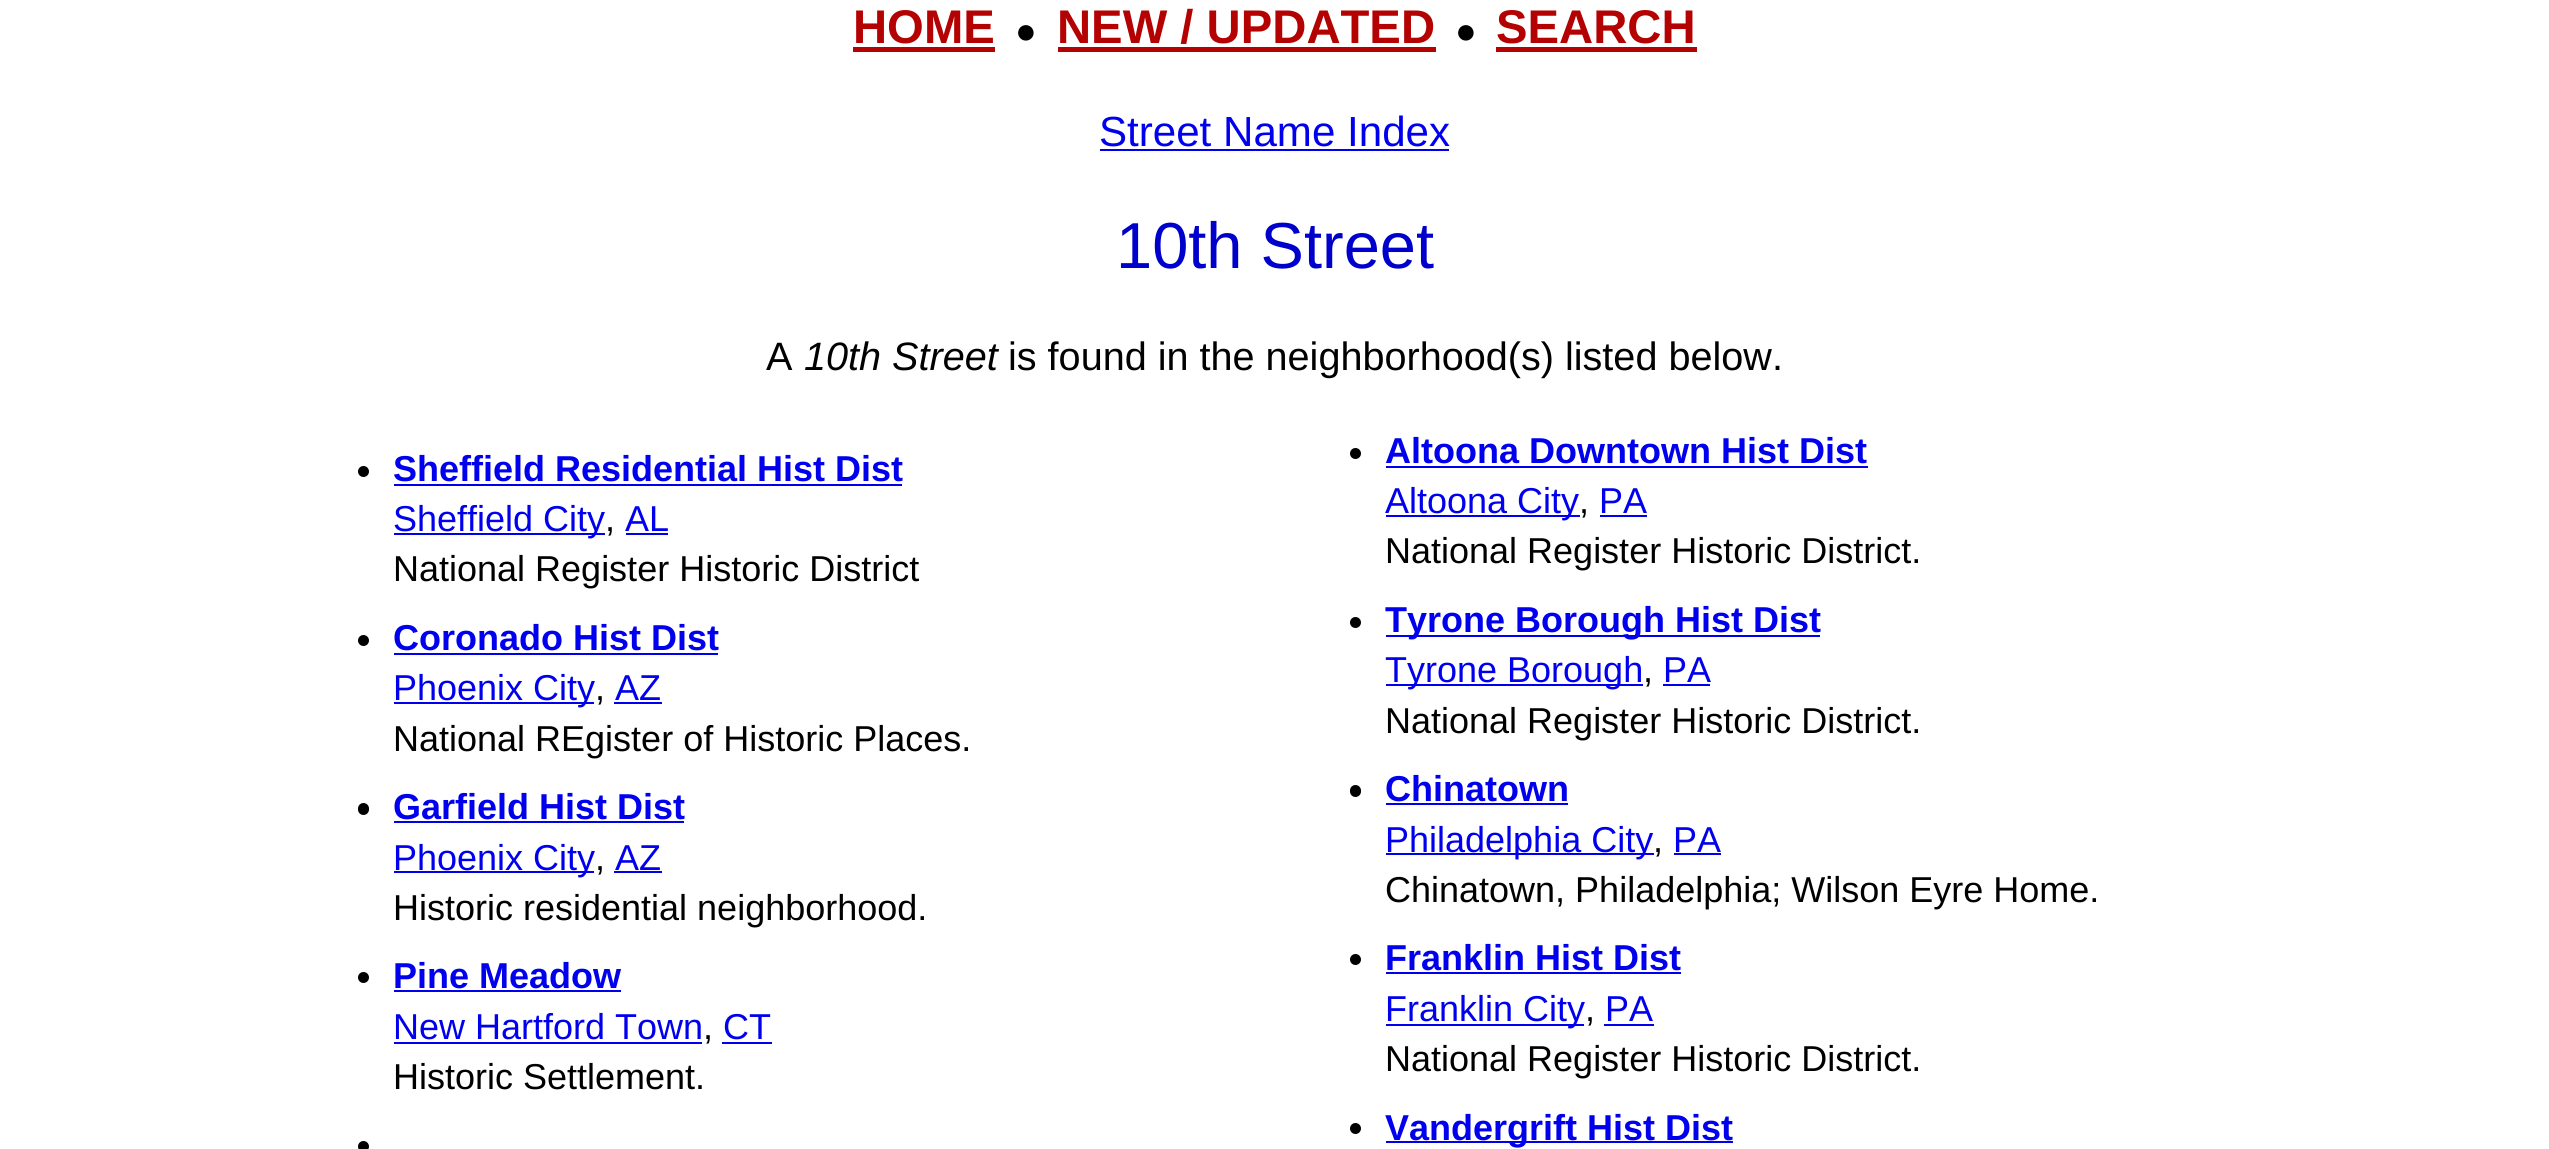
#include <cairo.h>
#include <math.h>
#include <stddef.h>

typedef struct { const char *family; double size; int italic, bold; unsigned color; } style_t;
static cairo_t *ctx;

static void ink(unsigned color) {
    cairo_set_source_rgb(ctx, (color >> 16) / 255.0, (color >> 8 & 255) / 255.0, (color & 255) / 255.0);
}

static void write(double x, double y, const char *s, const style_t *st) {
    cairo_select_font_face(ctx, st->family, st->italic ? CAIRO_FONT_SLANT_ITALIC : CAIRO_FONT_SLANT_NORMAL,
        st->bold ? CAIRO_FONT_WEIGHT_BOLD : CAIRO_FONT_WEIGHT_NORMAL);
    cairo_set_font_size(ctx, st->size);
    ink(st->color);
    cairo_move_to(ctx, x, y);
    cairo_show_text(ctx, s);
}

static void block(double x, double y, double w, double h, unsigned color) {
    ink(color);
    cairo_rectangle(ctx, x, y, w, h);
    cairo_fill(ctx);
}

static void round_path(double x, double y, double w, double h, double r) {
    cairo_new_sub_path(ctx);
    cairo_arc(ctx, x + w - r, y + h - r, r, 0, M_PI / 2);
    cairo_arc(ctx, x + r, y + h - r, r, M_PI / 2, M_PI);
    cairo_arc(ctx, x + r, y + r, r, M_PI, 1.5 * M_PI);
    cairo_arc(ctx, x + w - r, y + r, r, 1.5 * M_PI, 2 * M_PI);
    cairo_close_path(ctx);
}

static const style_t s1 = {"Liberation Sans", 47.25, 0, 1, 0xb40101};
static const style_t s2 = {"Liberation Sans", 36, 0, 0, 0x000000};
static const style_t s3 = {"Liberation Sans", 42.1, 0, 0, 0x0000ee};
static const style_t s4 = {"Liberation Sans", 65, 0, 0, 0x0000cc};
static const style_t s5 = {"Liberation Sans", 39.6, 0, 0, 0x000000};
static const style_t s6 = {"Liberation Sans", 39.6, 1, 0, 0x000000};
static const style_t s7 = {"Liberation Sans", 36, 0, 1, 0x0000ee};
static const style_t s8 = {"Liberation Sans", 36, 0, 0, 0x0000ee};

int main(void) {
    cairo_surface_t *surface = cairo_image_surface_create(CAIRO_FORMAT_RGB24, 2549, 1149);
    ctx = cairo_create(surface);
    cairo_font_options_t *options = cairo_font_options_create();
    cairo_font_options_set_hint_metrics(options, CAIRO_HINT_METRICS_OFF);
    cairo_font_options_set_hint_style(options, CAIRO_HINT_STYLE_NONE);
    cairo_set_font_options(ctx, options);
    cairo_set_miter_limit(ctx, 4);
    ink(0xffffff);
    cairo_paint(ctx);
    write(853, 43, "HOME", &s1);
    block(853, 47, 142, 5, 0xb40101);
    write(1015, 43, "●", &s2);
    write(1057, 43, "NEW / UPDATED", &s1);
    block(1058, 47, 378, 5, 0xb40101);
    write(1455, 43, "●", &s2);
    write(1496, 43, "SEARCH", &s1);
    block(1496, 47, 201, 5, 0xb40101);
    write(1099, 146, "Street Name Index", &s3);
    block(1100, 149, 349, 2, 0x0000ee);
    write(1116, 268, "10th Street", &s4);
    write(766, 370, "A", &s5);
    write(804, 370, "10th Street", &s6);
    write(1008, 370, "is found in the neighborhood(s) listed below.", &s5);
    cairo_new_path(ctx);
    cairo_arc(ctx, 363.5, 471.5, 5.5, 0, 2 * M_PI);
    cairo_fill(ctx);
    write(393, 481, "Sheffield Residential Hist Dist", &s7);
    block(394, 484, 508, 2, 0x0000ee);
    block(394, 533, 211, 2, 0x0000ee);
    write(393, 531, "Sheffield City", &s8);
    write(605, 531, ",", &s2);
    write(625, 531, "AL", &s8);
    block(626, 533, 42, 2, 0x0000ee);
    write(393, 581, "National Register Historic District", &s2);
    cairo_new_path(ctx);
    cairo_arc(ctx, 1355.5, 453.5, 5.5, 0, 2 * M_PI);
    cairo_fill(ctx);
    write(1385, 463, "Altoona Downtown Hist Dist", &s7);
    block(1386, 466, 482, 2, 0x0000ee);
    block(1386, 515, 194, 2, 0x0000ee);
    write(1385, 513, "Altoona City", &s8);
    write(1579, 513, ",", &s2);
    write(1599, 513, "PA", &s8);
    block(1600, 515, 47, 2, 0x0000ee);
    write(1385, 563, "National Register Historic District.", &s2);
    cairo_new_path(ctx);
    cairo_arc(ctx, 363.5, 640.5, 5.5, 0, 2 * M_PI);
    cairo_fill(ctx);
    write(393, 650, "Coronado Hist Dist", &s7);
    block(394, 653, 324, 2, 0x0000ee);
    block(394, 702, 200, 2, 0x0000ee);
    write(393, 700, "Phoenix City", &s8);
    write(595, 700, ",", &s2);
    write(615, 700, "AZ", &s8);
    block(614, 702, 48, 2, 0x0000ee);
    write(393, 751, "National REgister of Historic Places.", &s2);
    cairo_new_path(ctx);
    cairo_arc(ctx, 1355.5, 622.5, 5.5, 0, 2 * M_PI);
    cairo_fill(ctx);
    block(1386, 635, 434, 2, 0x0000ee);
    write(1385, 632, "Tyrone Borough Hist Dist", &s7);
    block(1386, 684, 257, 2, 0x0000ee);
    write(1385, 682, "Tyrone Borough", &s8);
    write(1643, 682, ",", &s2);
    write(1663, 682, "PA", &s8);
    block(1663, 684, 47, 2, 0x0000ee);
    write(1385, 733, "National Register Historic District.", &s2);
    round_path(358, 803, 11, 12, 5.5);
    cairo_fill(ctx);
    write(393, 819, "Garfield Hist Dist", &s7);
    block(394, 821, 290, 2, 0x0000ee);
    block(394, 871, 200, 2, 0x0000ee);
    write(393, 870, "Phoenix City", &s8);
    write(595, 870, ",", &s2);
    write(615, 870, "AZ", &s8);
    block(614, 871, 48, 2, 0x0000ee);
    write(393, 920, "Historic residential neighborhood.", &s2);
    round_path(1350, 785, 11, 12, 5.5);
    cairo_fill(ctx);
    write(1385, 801, "Chinatown", &s7);
    block(1386, 803, 182, 2, 0x0000ee);
    block(1386, 853, 268, 2, 0x0000ee);
    write(1385, 852, "Philadelphia City", &s8);
    write(1653, 852, ",", &s2);
    write(1673, 852, "PA", &s8);
    block(1674, 853, 47, 2, 0x0000ee);
    write(1385, 902, "Chinatown, Philadelphia; Wilson Eyre Home.", &s2);
    cairo_new_path(ctx);
    cairo_arc(ctx, 363.5, 977.5, 5.5, 0, 2 * M_PI);
    cairo_fill(ctx);
    write(393, 988, "Pine Meadow", &s7);
    block(394, 990, 227, 2, 0x0000ee);
    write(393, 1039, "New Hartford Town", &s8);
    block(394, 1042, 308, 2, 0x0000ee);
    write(703, 1039, ",", &s2);
    write(723, 1039, "CT", &s8);
    block(722, 1042, 50, 2, 0x0000ee);
    write(393, 1089, "Historic Settlement.", &s2);
    cairo_new_path(ctx);
    cairo_arc(ctx, 1355.5, 959.5, 5.5, 0, 2 * M_PI);
    cairo_fill(ctx);
    write(1385, 970, "Franklin Hist Dist", &s7);
    block(1386, 972, 295, 2, 0x0000ee);
    block(1386, 1024, 198, 2, 0x0000ee);
    write(1385, 1021, "Franklin City", &s8);
    write(1585, 1021, ",", &s2);
    write(1605, 1021, "PA", &s8);
    block(1604, 1024, 50, 2, 0x0000ee);
    write(1385, 1071, "National Register Historic District.", &s2);
    cairo_new_path(ctx);
    cairo_arc(ctx, 363.5, 1146.5, 5.5, 0, 2 * M_PI);
    cairo_fill(ctx);
    cairo_arc(ctx, 1355.5, 1128.5, 5.5, 0, 2 * M_PI);
    cairo_fill(ctx);
    block(1386, 1141, 347, 2, 0x0000ee);
    write(1385, 1140, "Vandergrift Hist Dist", &s7);
    cairo_surface_write_to_png(surface, "screenshot.png");
    cairo_font_options_destroy(options);
    cairo_destroy(ctx);
    cairo_surface_destroy(surface);
    return 0;
}
